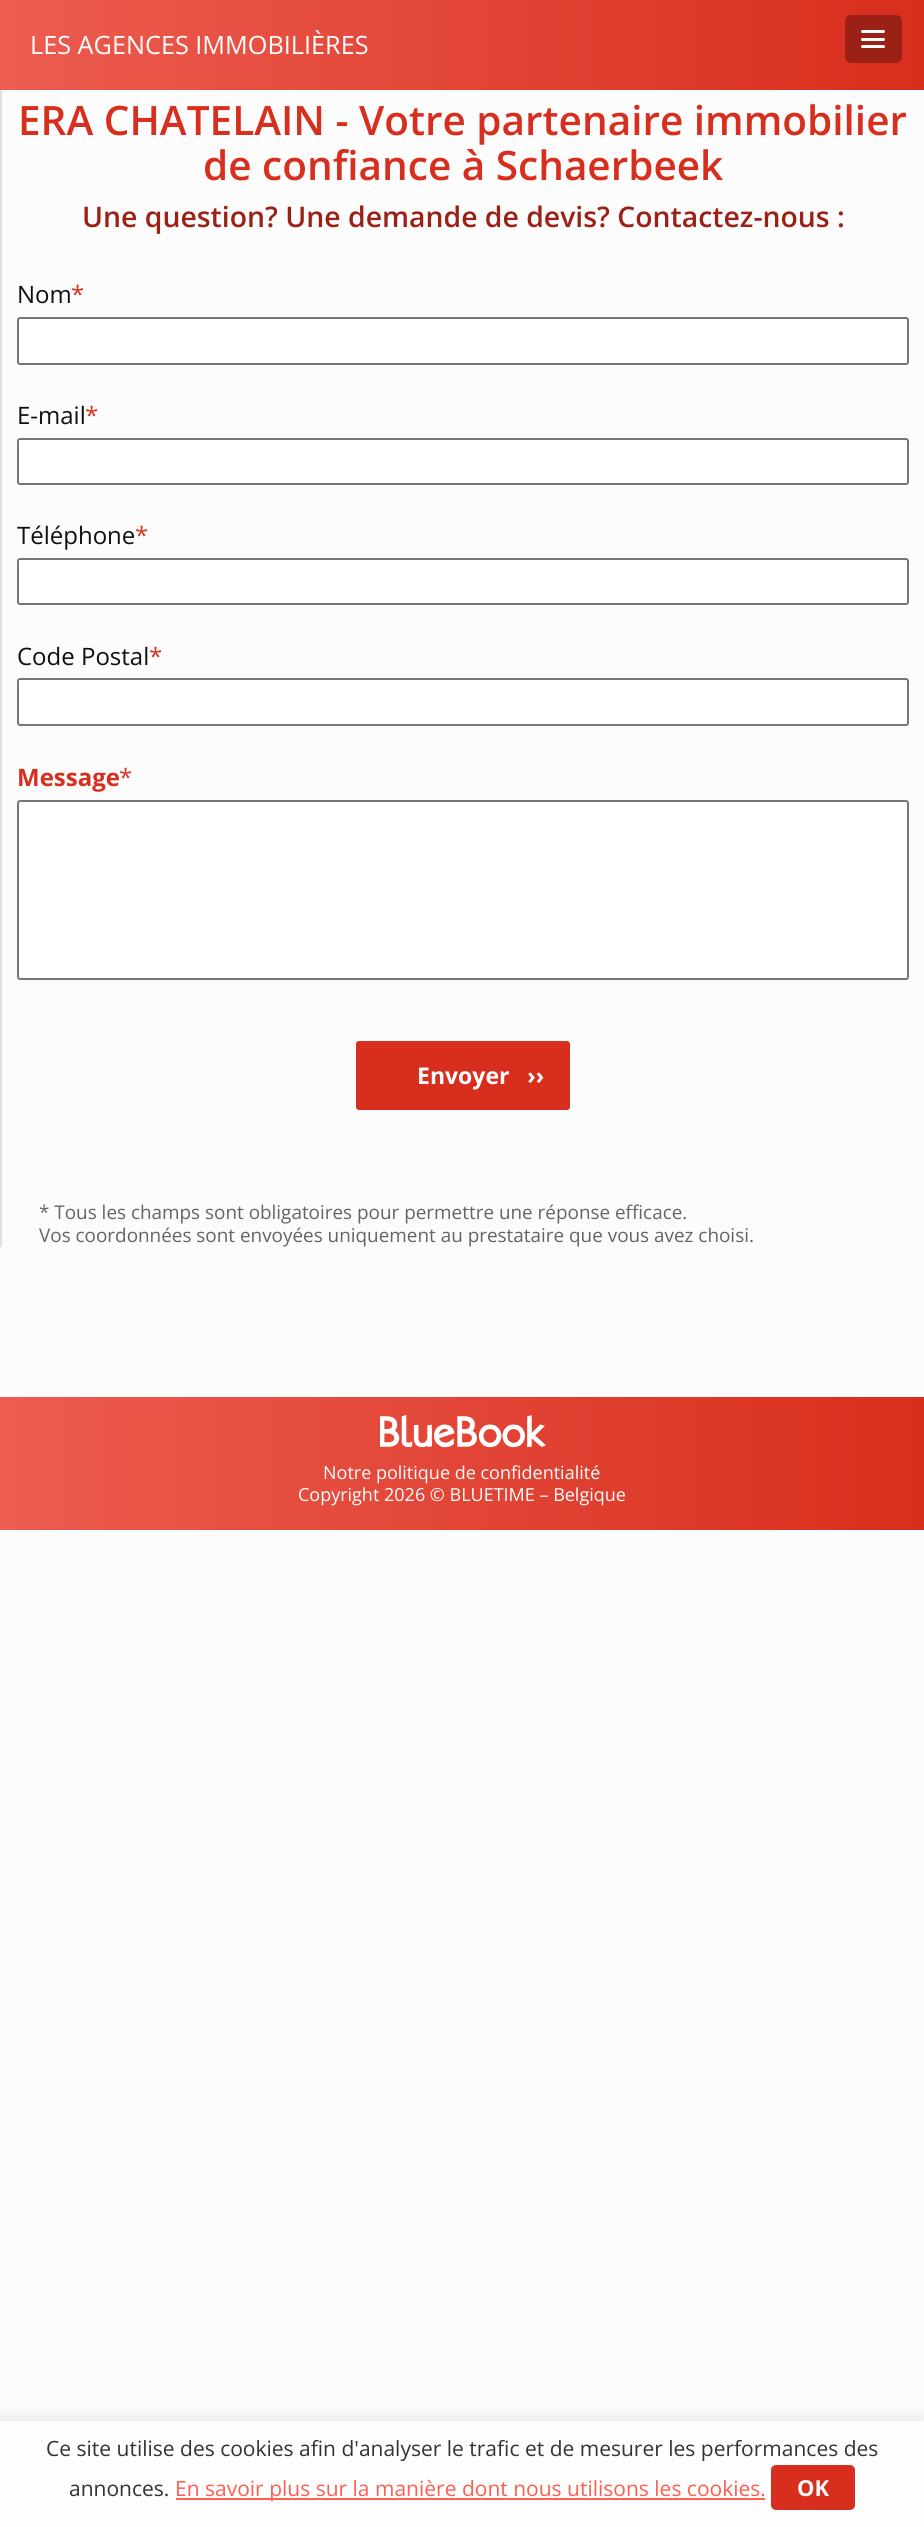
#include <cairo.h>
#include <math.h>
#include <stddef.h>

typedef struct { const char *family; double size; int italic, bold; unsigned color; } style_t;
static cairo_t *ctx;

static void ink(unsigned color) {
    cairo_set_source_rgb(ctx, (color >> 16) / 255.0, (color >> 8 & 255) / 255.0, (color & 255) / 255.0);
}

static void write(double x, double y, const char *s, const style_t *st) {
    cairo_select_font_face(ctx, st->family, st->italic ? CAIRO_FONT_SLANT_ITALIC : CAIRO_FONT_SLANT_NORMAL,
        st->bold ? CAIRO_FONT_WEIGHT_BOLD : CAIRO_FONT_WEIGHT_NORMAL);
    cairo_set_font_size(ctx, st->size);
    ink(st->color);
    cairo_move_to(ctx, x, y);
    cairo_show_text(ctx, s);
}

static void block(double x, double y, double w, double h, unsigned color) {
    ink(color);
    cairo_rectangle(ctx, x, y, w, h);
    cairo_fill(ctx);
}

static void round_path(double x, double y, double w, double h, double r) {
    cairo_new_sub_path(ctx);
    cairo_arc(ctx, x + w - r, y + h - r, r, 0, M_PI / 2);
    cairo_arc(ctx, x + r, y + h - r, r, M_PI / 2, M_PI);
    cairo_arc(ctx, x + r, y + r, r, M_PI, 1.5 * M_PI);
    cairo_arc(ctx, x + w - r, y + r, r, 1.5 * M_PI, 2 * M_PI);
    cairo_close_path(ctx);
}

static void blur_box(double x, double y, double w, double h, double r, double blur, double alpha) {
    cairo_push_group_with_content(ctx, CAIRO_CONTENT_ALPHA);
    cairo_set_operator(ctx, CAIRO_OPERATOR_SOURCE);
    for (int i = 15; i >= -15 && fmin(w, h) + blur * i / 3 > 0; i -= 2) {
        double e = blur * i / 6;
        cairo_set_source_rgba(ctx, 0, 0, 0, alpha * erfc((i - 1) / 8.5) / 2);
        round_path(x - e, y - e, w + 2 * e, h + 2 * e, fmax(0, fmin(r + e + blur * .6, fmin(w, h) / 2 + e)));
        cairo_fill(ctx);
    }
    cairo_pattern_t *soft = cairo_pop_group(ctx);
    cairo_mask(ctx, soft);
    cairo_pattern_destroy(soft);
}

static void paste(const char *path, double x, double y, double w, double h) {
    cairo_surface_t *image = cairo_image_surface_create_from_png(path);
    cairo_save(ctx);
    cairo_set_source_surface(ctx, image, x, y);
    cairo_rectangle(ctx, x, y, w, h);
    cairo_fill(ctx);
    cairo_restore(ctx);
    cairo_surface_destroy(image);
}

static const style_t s1 = {"Open Sans", 25.25, 0, 0, 0xffffff};
static const style_t s2 = {"Open Sans SemiBold", 40.5, 0, 0, 0xd82e1d};
static const style_t s3 = {"Open Sans SemiBold", 28.35, 0, 0, 0x9b2015};
static const style_t s4 = {"Open Sans", 24, 0, 0, 0x101010};
static const style_t s5 = {"Open Sans", 24, 0, 0, 0xd82e1d};
static const style_t s6 = {"Open Sans", 24, 0, 1, 0xd82e1d};
static const style_t s7 = {"Open Sans", 23, 0, 1, 0xffffff};
static const style_t s8 = {"Open Sans", 18.9, 0, 0, 0x646464};
static const style_t s9 = {"Open Sans", 18, 0, 0, 0xffffff};
static const style_t s10 = {"Open Sans", 21, 0, 0, 0x333333};
static const style_t s11 = {"Open Sans", 21, 0, 0, 0xff5d50};
static const style_t s12 = {"Open Sans", 22, 0, 1, 0xffffff};

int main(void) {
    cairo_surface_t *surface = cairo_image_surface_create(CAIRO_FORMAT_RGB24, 924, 2527);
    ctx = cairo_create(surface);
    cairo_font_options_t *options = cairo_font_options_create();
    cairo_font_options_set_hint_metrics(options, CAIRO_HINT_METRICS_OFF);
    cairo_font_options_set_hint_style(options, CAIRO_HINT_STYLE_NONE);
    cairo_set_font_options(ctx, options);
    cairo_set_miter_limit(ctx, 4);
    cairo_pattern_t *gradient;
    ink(0xfcfcfc);
    cairo_paint(ctx);
    gradient = cairo_pattern_create_linear(0, 45, 924, 45);
    cairo_pattern_add_color_stop_rgba(gradient, 0.01, 0.925, 0.361, 0.31, 1);
    cairo_pattern_add_color_stop_rgba(gradient, 1, 0.847, 0.18, 0.114, 1);
    cairo_set_source(ctx, gradient);
    cairo_pattern_destroy(gradient);
    cairo_rectangle(ctx, 0, 0, 924, 90);
    cairo_fill(ctx);
    write(30, 54, "LES AGENCES IMMOBILIÈRES", &s1);
    ink(0x9b2015);
    round_path(846, 16, 55, 46, 5);
    cairo_fill_preserve(ctx);
    cairo_stroke(ctx);
    ink(0xffffff);
    round_path(861, 30, 24, 3, 1.5);
    cairo_fill(ctx);
    round_path(861, 38, 24, 3, 1.5);
    cairo_fill(ctx);
    round_path(861, 45, 24, 3, 1.5);
    cairo_fill(ctx);
    block(0, 90, 2, 1157, 0xe1e1e1);
    write(18, 135, "ERA CHATELAIN - Votre partenaire immobilier", &s2);
    write(203, 180, "de confiance à Schaerbeek", &s2);
    write(82, 227, "Une question? Une demande de devis? Contactez-nous :", &s3);
    write(17, 303, "Nom", &s4);
    write(71, 303, "*", &s5);
    ink(0xffffff);
    round_path(18, 318, 890, 46, 2);
    cairo_fill_preserve(ctx);
    ink(0x767676);
    cairo_stroke(ctx);
    write(17, 424, "E-mail", &s4);
    write(85, 424, "*", &s5);
    ink(0xffffff);
    round_path(18, 439, 890, 45, 2);
    cairo_fill_preserve(ctx);
    ink(0x767676);
    cairo_stroke(ctx);
    write(17, 544, "Téléphone", &s4);
    write(135, 544, "*", &s5);
    ink(0xffffff);
    round_path(18, 559, 890, 45, 2);
    cairo_fill_preserve(ctx);
    ink(0x767676);
    cairo_stroke(ctx);
    write(17, 665, "Code Postal", &s4);
    write(149, 665, "*", &s5);
    ink(0xffffff);
    round_path(18, 679, 890, 46, 2);
    cairo_fill_preserve(ctx);
    ink(0x767676);
    cairo_stroke(ctx);
    write(17, 786, "Message", &s6);
    write(119, 786, "*", &s5);
    ink(0xffffff);
    round_path(18, 801, 890, 178, 2);
    cairo_fill_preserve(ctx);
    ink(0x767676);
    cairo_stroke(ctx);
    ink(0xd82e1d);
    round_path(356, 1041, 214, 69, 3);
    cairo_fill(ctx);
    write(417, 1084, "Envoyer   ››", &s7);
    write(39, 1219, "* Tous les champs sont obligatoires pour permettre une réponse efficace.", &s8);
    write(39, 1242, "Vos coordonnées sont envoyées uniquement au prestataire que vous avez choisi.", &s8);
    gradient = cairo_pattern_create_linear(0, 1463, 924, 1463);
    cairo_pattern_add_color_stop_rgba(gradient, 0.01, 0.925, 0.361, 0.31, 1);
    cairo_pattern_add_color_stop_rgba(gradient, 1, 0.847, 0.18, 0.114, 1);
    cairo_set_source(ctx, gradient);
    cairo_pattern_destroy(gradient);
    cairo_rectangle(ctx, 0, 1397, 924, 133);
    cairo_fill(ctx);
    paste("pic1.png", 380, 1415, 166, 33);
    write(323, 1479, "Notre politique de confidentialité", &s9);
    write(298, 1501, "Copyright 2026 © BLUETIME – Belgique", &s9);
    ink(0x000000);
    blur_box(0, 2417, 924, 106, 0, 7.5, 0.08);
    block(0, 2421, 924, 106, 0xfefefe);
    write(46, 2456, "Ce site utilise des cookies afin d'analyser le trafic et de mesurer les performances des", &s10);
    write(69, 2496, "annonces.", &s10);
    block(176, 2498, 589, 2, 0xff5d50);
    write(175, 2496, "En savoir plus sur la manière dont nous utilisons les cookies.", &s11);
    ink(0xd82e1d);
    round_path(771, 2465, 84, 45, 5);
    cairo_fill(ctx);
    write(797, 2496, "OK", &s12);
    cairo_surface_write_to_png(surface, "screenshot.png");
    cairo_font_options_destroy(options);
    cairo_destroy(ctx);
    cairo_surface_destroy(surface);
    return 0;
}
